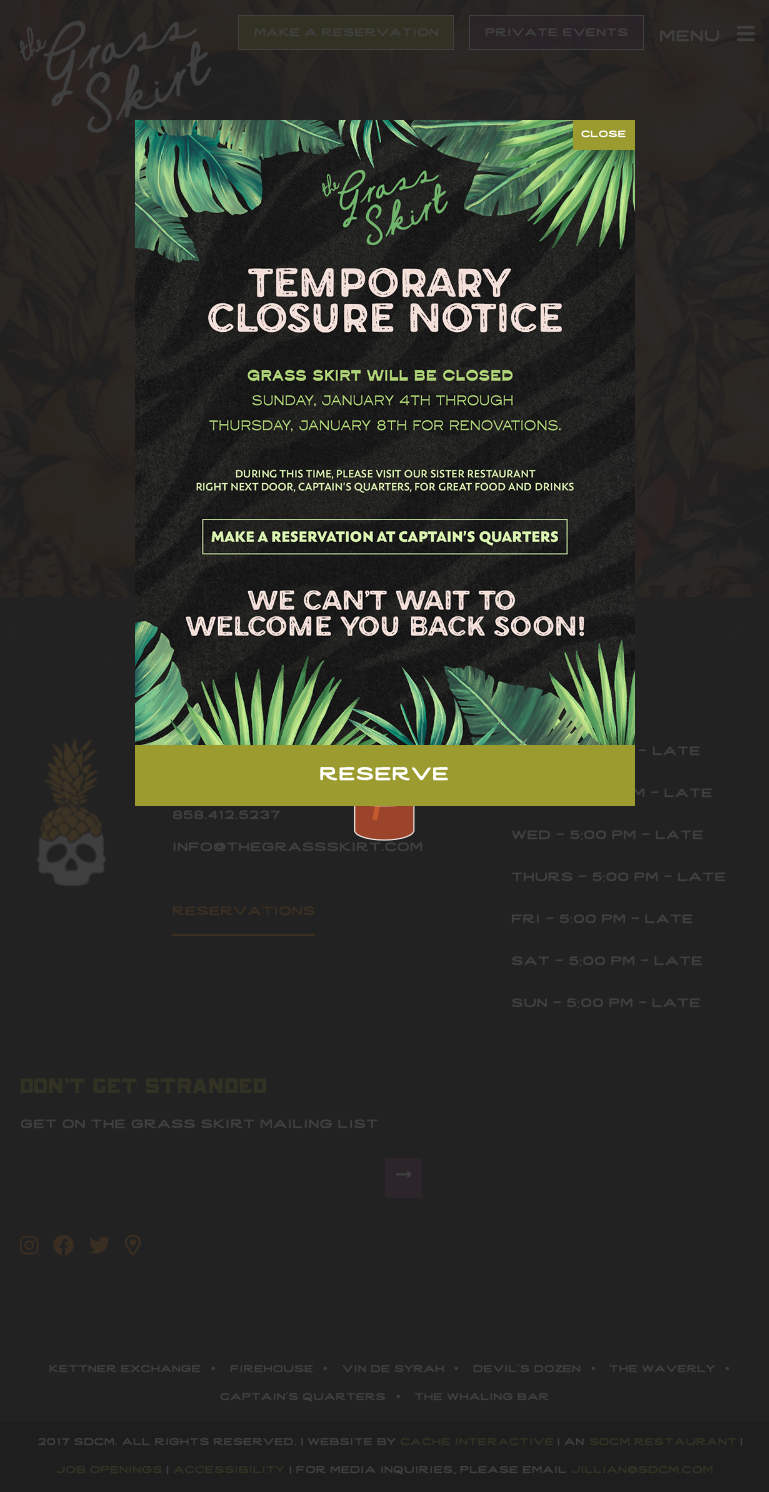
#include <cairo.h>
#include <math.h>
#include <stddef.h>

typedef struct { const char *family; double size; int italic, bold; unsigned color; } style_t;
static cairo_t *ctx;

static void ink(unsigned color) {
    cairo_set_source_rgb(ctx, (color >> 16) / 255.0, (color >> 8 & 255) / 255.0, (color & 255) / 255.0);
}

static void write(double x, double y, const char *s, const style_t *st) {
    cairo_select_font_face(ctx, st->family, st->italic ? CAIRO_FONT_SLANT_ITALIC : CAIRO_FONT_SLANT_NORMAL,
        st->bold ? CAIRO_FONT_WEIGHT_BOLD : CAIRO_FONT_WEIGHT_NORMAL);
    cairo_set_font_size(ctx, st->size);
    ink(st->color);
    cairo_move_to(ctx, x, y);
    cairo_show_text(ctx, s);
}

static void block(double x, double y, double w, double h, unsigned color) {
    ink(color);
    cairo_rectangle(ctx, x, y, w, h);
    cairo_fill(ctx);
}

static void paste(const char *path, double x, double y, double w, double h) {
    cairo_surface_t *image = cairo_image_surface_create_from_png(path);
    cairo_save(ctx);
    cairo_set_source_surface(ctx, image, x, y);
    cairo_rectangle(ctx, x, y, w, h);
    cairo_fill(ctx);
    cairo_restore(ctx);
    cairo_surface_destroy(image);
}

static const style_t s1 = {"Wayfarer", 14.4, 0, 0, 0x3f3f3f};
static const style_t s2 = {"Wayfarer", 20, 0, 0, 0x3f3f3f};
static const style_t s3 = {"Wayfarer", 16, 0, 0, 0x3f3f3f};
static const style_t s4 = {"Wayfarer", 16, 0, 0, 0x3a2e23};
static const style_t s5 = {"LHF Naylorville", 24, 0, 0, 0x323224};
static const style_t s6 = {"Wayfarer", 13, 0, 0, 0x3f3f3f};
static const style_t s7 = {"Wayfarer", 13, 0, 0, 0x323224};
static const style_t s8 = {"Wayfarer", 12, 0, 0, 0xffffff};
static const style_t s9 = {"Wayfarer", 24, 0, 0, 0xffffff};

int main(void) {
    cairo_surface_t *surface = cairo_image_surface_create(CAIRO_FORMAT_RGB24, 769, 1492);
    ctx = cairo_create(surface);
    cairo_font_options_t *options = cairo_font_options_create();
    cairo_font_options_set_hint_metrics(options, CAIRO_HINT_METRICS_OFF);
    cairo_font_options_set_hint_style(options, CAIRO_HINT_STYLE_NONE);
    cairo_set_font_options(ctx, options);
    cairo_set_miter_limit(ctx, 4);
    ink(0x222222);
    cairo_paint(ctx);
    paste("pic1.png", 0, 597, 769, 64);
    paste("pic2.png", 0, 0, 769, 597);
    paste("pic3.png", 19, 20, 192, 113);
    ink(0x323224);
    cairo_rectangle(ctx, 238.5, 15.5, 215, 34);
    cairo_fill_preserve(ctx);
    ink(0x3f3f3f);
    cairo_set_line_width(ctx, 1);
    cairo_stroke(ctx);
    write(254, 36, "make a reservation", &s1);
    cairo_set_source_rgba(ctx, 0.173, 0.145, 0.165, 0.75);
    cairo_rectangle(ctx, 469.5, 15.5, 174, 34);
    cairo_fill_preserve(ctx);
    ink(0x3f3f3f);
    cairo_stroke(ctx);
    write(485, 36, "private events", &s1);
    write(659, 41, "menu", &s2);
    paste("pic4.png", 737, 25, 18, 17);
    paste("pic5.png", 35, 737, 72, 149);
    write(172, 819, "858.412.5237", &s3);
    write(172, 851, "info@thegrassskirt.com", &s3);
    block(172, 934, 143, 2, 0x3a2e23);
    write(172, 915, "reservations", &s4);
    write(638, 755, "- late", &s3);
    write(632, 797, "m - late", &s3);
    write(511, 839, "wed - 5:00 pm - late", &s3);
    write(511, 881, "thurs - 5:00 pm - late", &s3);
    write(511, 923, "fri - 5:00 pm - late", &s3);
    write(511, 965, "sat - 5:00 pm - late", &s3);
    write(511, 1007, "sun - 5:00 pm - late", &s3);
    write(20, 1093, "don’t get stranded", &s5);
    write(20, 1128, "get on the grass skirt mailing list", &s3);
    block(385, 1158, 37, 40, 0x2c252a);
    paste("pic6.png", 396, 1170, 16, 9);
    paste("pic7.png", 20, 1235, 19, 20);
    paste("pic8.png", 53, 1235, 21, 21);
    paste("pic9.png", 89, 1236, 21, 18);
    paste("pic10.png", 125, 1234, 16, 22);
    write(49, 1372, "kettner exchange", &s6);
    write(211, 1372, "•", &s6);
    write(230, 1372, "firehouse", &s6);
    write(323, 1372, "•", &s6);
    write(342, 1372, "vin de syrah", &s6);
    write(454, 1372, "•", &s6);
    write(473, 1372, "devil’s dozen", &s6);
    write(591, 1372, "•", &s6);
    write(609, 1372, "the waverly", &s6);
    write(725, 1372, "•", &s6);
    write(220, 1400, "captain’s quarters", &s6);
    write(396, 1400, "•", &s6);
    write(414, 1400, "the whaling bar", &s6);
    block(0, 1421, 769, 71, 0x1e1e1e);
    write(26, 1445, "© 2017 sdcm. all rights reserved. | website by", &s6);
    write(400, 1445, "cache interactive", &s7);
    write(557, 1445, "| an", &s6);
    write(589, 1445, "sdcm restaurant", &s7);
    write(740, 1445, "|", &s6);
    write(56, 1473, "job openings", &s7);
    write(166, 1473, "|", &s6);
    write(173, 1473, "accessibility", &s7);
    write(289, 1473, "| for media inquiries, please email", &s6);
    write(571, 1473, "jillian@sdcm.com", &s7);
    paste("pic11.png", 135, 120, 500, 625);
    block(573, 120, 62, 30, 0x9b9b30);
    write(581, 137, "close", &s8);
    block(135, 745, 500, 61, 0x9b9b30);
    write(319, 780, "reserve", &s9);
    paste("pic12.png", 354, 806, 61, 35);
    cairo_surface_write_to_png(surface, "screenshot.png");
    cairo_font_options_destroy(options);
    cairo_destroy(ctx);
    cairo_surface_destroy(surface);
    return 0;
}
